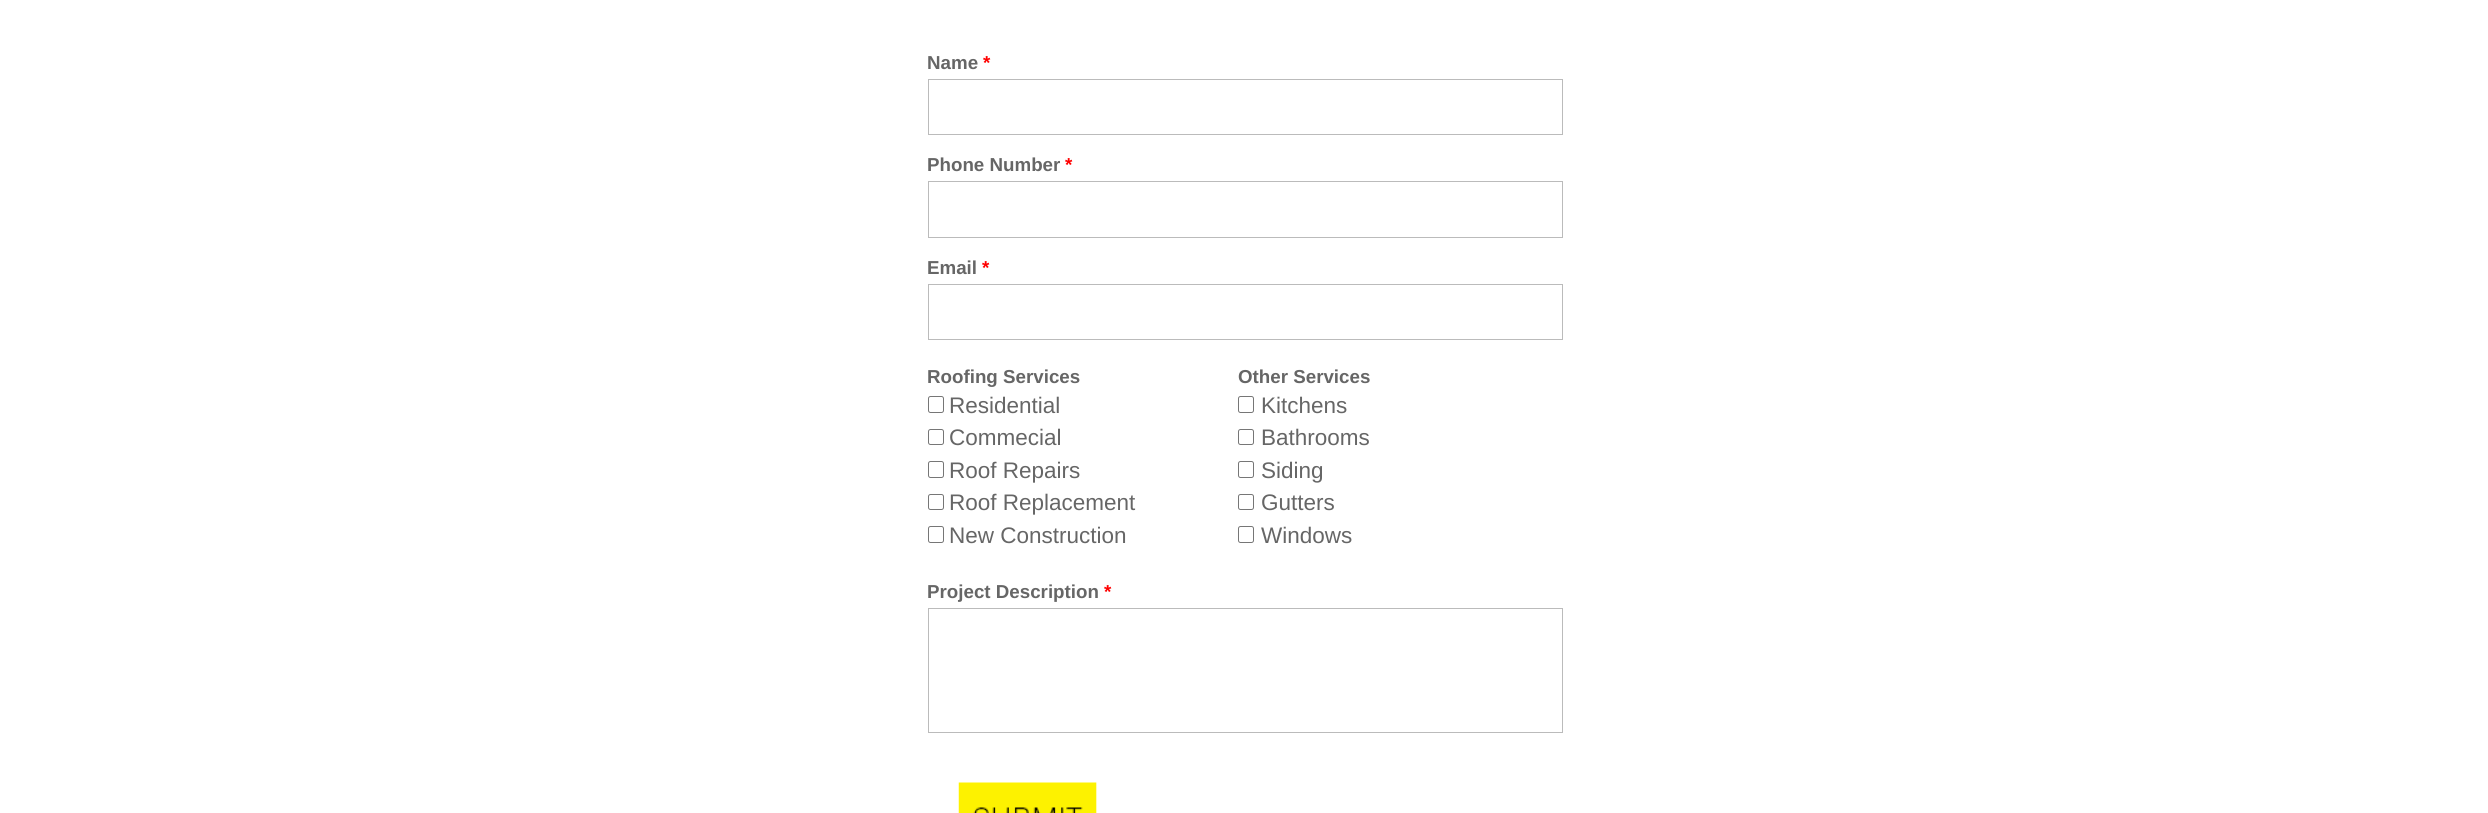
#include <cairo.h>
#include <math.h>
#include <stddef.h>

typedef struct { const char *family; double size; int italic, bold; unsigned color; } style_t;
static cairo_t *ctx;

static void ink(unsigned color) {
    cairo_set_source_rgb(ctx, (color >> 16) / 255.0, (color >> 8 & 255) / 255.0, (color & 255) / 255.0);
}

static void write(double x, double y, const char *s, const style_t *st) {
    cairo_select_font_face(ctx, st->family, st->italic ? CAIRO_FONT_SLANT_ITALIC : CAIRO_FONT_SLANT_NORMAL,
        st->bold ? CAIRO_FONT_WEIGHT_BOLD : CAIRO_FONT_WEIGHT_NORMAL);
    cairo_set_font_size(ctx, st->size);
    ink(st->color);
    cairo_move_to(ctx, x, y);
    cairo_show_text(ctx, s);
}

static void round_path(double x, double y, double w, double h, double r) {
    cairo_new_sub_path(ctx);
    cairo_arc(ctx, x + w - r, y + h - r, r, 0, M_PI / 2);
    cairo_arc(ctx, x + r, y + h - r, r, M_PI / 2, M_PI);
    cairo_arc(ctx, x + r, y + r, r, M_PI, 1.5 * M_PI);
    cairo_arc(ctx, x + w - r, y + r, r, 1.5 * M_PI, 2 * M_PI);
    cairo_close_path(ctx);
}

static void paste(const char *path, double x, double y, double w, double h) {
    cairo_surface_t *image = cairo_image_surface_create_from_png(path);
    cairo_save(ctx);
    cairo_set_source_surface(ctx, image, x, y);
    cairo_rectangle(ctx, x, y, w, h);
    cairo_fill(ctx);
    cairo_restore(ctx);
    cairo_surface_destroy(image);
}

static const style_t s1 = {"Liberation Sans", 18.75, 0, 1, 0x666666};
static const style_t s2 = {"Liberation Sans", 18.75, 0, 1, 0xff0000};
static const style_t s3 = {"Liberation Sans", 22.5, 0, 0, 0x666666};

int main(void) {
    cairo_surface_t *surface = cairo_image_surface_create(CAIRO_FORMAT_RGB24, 2488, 813);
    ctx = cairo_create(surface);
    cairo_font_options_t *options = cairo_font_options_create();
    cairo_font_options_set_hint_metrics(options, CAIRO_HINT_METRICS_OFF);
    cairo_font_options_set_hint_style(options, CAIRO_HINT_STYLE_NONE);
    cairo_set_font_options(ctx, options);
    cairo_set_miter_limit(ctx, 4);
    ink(0xffffff);
    cairo_paint(ctx);
    write(927, 69, "Name", &s1);
    write(983, 69, "*", &s2);
    cairo_rectangle(ctx, 928.5, 79.5, 634, 55);
    ink(0xbbbbbb);
    cairo_set_line_width(ctx, 1);
    cairo_stroke(ctx);
    write(927, 171, "Phone Number", &s1);
    write(1065, 171, "*", &s2);
    cairo_rectangle(ctx, 928.5, 181.5, 634, 56);
    ink(0xbbbbbb);
    cairo_stroke(ctx);
    write(927, 274, "Email", &s1);
    write(982, 274, "*", &s2);
    cairo_rectangle(ctx, 928.5, 284.5, 634, 55);
    ink(0xbbbbbb);
    cairo_stroke(ctx);
    write(927, 383, "Roofing Services", &s1);
    round_path(928.5, 396.5, 15, 16, 2);
    ink(0x767676);
    cairo_stroke(ctx);
    write(949, 413, "Residential", &s3);
    round_path(928.5, 429.5, 15, 15, 2);
    ink(0x767676);
    cairo_stroke(ctx);
    write(949, 445, "Commecial", &s3);
    round_path(928.5, 461.5, 15, 16, 2);
    ink(0x767676);
    cairo_stroke(ctx);
    write(949, 478, "Roof Repairs", &s3);
    round_path(928.5, 494.5, 15, 15, 2);
    ink(0x767676);
    cairo_stroke(ctx);
    write(949, 510, "Roof Replacement", &s3);
    round_path(928.5, 526.5, 15, 16, 2);
    ink(0x767676);
    cairo_stroke(ctx);
    write(949, 543, "New Construction", &s3);
    write(1238, 383, "Other Services", &s1);
    round_path(1238.5, 396.5, 15, 16, 2);
    ink(0x767676);
    cairo_stroke(ctx);
    write(1261, 413, "Kitchens", &s3);
    round_path(1238.5, 429.5, 15, 15, 2);
    ink(0x767676);
    cairo_stroke(ctx);
    write(1261, 445, "Bathrooms", &s3);
    round_path(1238.5, 461.5, 15, 16, 2);
    ink(0x767676);
    cairo_stroke(ctx);
    write(1261, 478, "Siding", &s3);
    round_path(1238.5, 494.5, 15, 15, 2);
    ink(0x767676);
    cairo_stroke(ctx);
    write(1261, 510, "Gutters", &s3);
    round_path(1238.5, 526.5, 15, 16, 2);
    ink(0x767676);
    cairo_stroke(ctx);
    write(1261, 543, "Windows", &s3);
    write(927, 598, "Project Description", &s1);
    write(1104, 598, "*", &s2);
    cairo_rectangle(ctx, 928.5, 608.5, 634, 124);
    ink(0xbbbbbb);
    cairo_stroke(ctx);
    paste("pic1.png", 958, 782, 139, 31);
    cairo_surface_write_to_png(surface, "screenshot.png");
    cairo_font_options_destroy(options);
    cairo_destroy(ctx);
    cairo_surface_destroy(surface);
    return 0;
}
